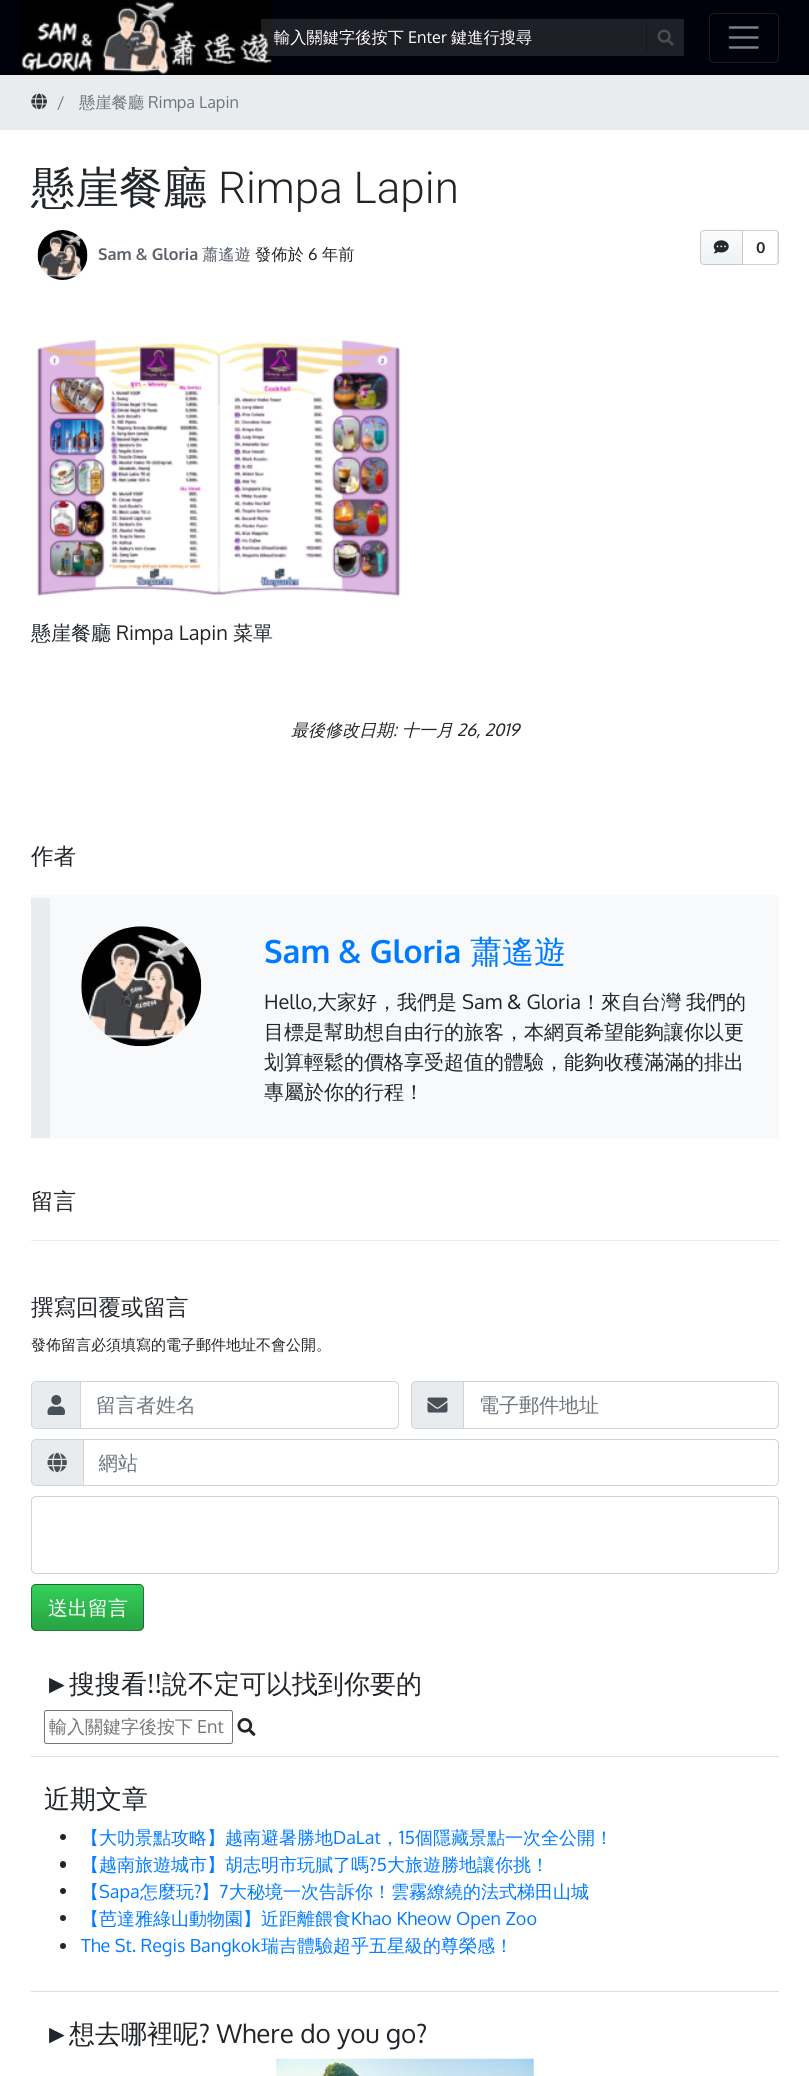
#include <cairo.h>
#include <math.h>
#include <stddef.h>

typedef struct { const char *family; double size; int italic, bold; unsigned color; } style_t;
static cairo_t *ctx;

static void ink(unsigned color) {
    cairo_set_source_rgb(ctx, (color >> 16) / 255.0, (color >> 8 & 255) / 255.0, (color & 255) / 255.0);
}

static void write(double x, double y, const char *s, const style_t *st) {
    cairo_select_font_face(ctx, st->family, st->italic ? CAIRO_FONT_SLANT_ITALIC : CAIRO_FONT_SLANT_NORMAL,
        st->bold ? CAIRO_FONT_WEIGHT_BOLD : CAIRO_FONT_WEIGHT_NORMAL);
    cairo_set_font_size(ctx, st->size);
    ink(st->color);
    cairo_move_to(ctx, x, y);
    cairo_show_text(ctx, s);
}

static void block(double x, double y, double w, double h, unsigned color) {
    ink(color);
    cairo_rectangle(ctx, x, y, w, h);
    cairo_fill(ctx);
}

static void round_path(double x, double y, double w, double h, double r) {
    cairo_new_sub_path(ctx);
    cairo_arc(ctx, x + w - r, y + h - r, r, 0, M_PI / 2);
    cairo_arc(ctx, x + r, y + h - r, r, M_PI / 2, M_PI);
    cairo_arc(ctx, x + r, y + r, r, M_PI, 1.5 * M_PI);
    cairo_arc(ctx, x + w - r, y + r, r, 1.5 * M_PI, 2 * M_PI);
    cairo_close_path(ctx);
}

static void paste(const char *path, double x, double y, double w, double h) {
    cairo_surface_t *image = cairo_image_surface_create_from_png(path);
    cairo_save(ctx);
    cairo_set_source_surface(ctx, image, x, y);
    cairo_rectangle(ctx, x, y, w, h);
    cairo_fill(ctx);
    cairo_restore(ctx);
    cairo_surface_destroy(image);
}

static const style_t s1 = {"WenQuanYi Zen Hei Medium", 16.25, 0, 0, 0xffffff};
static const style_t s2 = {"Oxygen", 16.25, 0, 0, 0xffffff};
static const style_t s3 = {"Oxygen", 16.25, 0, 0, 0x6c757d};
static const style_t s4 = {"WenQuanYi Zen Hei Medium", 16.25, 0, 0, 0x6c757d};
static const style_t s5 = {"WenQuanYi Zen Hei Medium", 44, 0, 0, 0x212529};
static const style_t s6 = {"Roboto Light", 44, 0, 0, 0x212529};
static const style_t s7 = {"Oxygen", 16.25, 0, 1, 0x586069};
static const style_t s8 = {"WenQuanYi Zen Hei Medium", 16.25, 0, 0, 0x586069};
static const style_t s9 = {"WenQuanYi Zen Hei Medium", 16.25, 0, 0, 0x212529};
static const style_t s10 = {"Oxygen", 16.25, 0, 0, 0x212529};
static const style_t s11 = {"Oxygen", 15, 0, 1, 0x212529};
static const style_t s12 = {"WenQuanYi Zen Hei Medium", 20, 0, 0, 0x212529};
static const style_t s13 = {"Oxygen", 20, 0, 0, 0x212529};
static const style_t s14 = {"WenQuanYi Zen Hei Medium", 17, 1, 0, 0x212529};
static const style_t s15 = {"Oxygen", 17, 1, 0, 0x212529};
static const style_t s16 = {"WenQuanYi Zen Hei Medium", 22.5, 0, 0, 0x212529};
static const style_t s17 = {"Oxygen", 32, 0, 1, 0x007bff};
static const style_t s18 = {"WenQuanYi Zen Hei Medium", 32, 0, 0, 0x007bff};
static const style_t s19 = {"WenQuanYi Zen Hei Medium", 15, 0, 0, 0x212529};
static const style_t s20 = {"WenQuanYi Zen Hei Medium", 20, 0, 0, 0x6c757d};
static const style_t s21 = {"WenQuanYi Zen Hei Medium", 20, 0, 0, 0xffffff};
static const style_t s22 = {"Liberation Serif", 26, 0, 0, 0x212529};
static const style_t s23 = {"WenQuanYi Zen Hei Medium", 26, 0, 0, 0x212529};
static const style_t s24 = {"Oxygen", 26, 0, 0, 0x212529};
static const style_t s25 = {"WenQuanYi Zen Hei Medium", 18, 0, 0, 0x757575};
static const style_t s26 = {"Oxygen", 18, 0, 0, 0x757575};
static const style_t s27 = {"WenQuanYi Zen Hei Medium", 18, 0, 0, 0x007bff};
static const style_t s28 = {"Oxygen", 18, 0, 0, 0x007bff};

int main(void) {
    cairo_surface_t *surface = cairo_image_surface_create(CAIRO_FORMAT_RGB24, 809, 2076);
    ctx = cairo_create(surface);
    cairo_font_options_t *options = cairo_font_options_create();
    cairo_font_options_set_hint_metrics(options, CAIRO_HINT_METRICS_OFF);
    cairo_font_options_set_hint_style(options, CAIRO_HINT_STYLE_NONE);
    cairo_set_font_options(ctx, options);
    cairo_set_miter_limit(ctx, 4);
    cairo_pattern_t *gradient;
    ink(0xffffff);
    cairo_paint(ctx);
    block(0, 0, 809, 75, 0x00010a);
    paste("pic1.png", 19, 0, 253, 75);
    cairo_set_source_rgba(ctx, 1, 1, 1, 0.12);
    cairo_rectangle(ctx, 261, 19, 423, 37);
    cairo_fill(ctx);
    write(274, 43, "輸入關鍵字後按下", &s1);
    write(408, 43, "Enter", &s2);
    write(451, 43, "鍵進行搜尋", &s1);
    block(646, 23, 1, 30, 0x15161c);
    paste("pic2.png", 657, 29, 17, 17);
    round_path(709.5, 13.5, 69, 49, 4.5);
    ink(0x1a1a23);
    cairo_set_line_width(ctx, 1);
    cairo_stroke(ctx);
    cairo_new_path(ctx);
    cairo_move_to(ctx, 730, 27.5);
    cairo_line_to(ctx, 757.5, 27.5);
    cairo_move_to(ctx, 730, 37.5);
    cairo_line_to(ctx, 757.5, 37.5);
    cairo_move_to(ctx, 730, 47.5);
    cairo_line_to(ctx, 757.5, 47.5);
    ink(0x808085);
    cairo_set_line_width(ctx, 2.5);
    cairo_set_line_cap(ctx, CAIRO_LINE_CAP_ROUND);
    cairo_stroke(ctx);
    block(0, 75, 809, 55, 0xe9ecef);
    paste("pic3.png", 31, 93, 16, 17);
    write(57, 108, "/", &s3);
    write(79, 108, "懸崖餐廳", &s4);
    write(148, 108, "Rimpa Lapin", &s3);
    write(31, 203, "懸崖餐廳", &s5);
    write(218, 203, "Rimpa Lapin", &s6);
    paste("pic4.png", 37, 230, 51, 50);
    write(98, 260, "Sam & Gloria", &s7);
    write(202, 260, "蕭遙遊", &s8);
    write(255, 260, "發佈於", &s9);
    write(308, 260, "6", &s10);
    write(322, 260, "年前", &s9);
    ink(0xd1d2d3);
    cairo_set_fill_rule(ctx, CAIRO_FILL_RULE_EVEN_ODD);
    cairo_new_path(ctx);
    cairo_move_to(ctx, 742.5, 230);
    cairo_line_to(ctx, 775, 230);
    cairo_curve_to(ctx, 777, 230, 779, 231.5, 779, 234);
    cairo_line_to(ctx, 779, 261);
    cairo_curve_to(ctx, 779, 263.5, 777, 265, 775, 265);
    cairo_line_to(ctx, 742.5, 265);
    cairo_close_path(ctx);
    cairo_move_to(ctx, 742.5, 231);
    cairo_line_to(ctx, 775, 231);
    cairo_curve_to(ctx, 776.5, 231, 777.5, 232.5, 777.5, 234);
    cairo_line_to(ctx, 777.5, 261);
    cairo_curve_to(ctx, 777.5, 262.5, 776.5, 264, 775, 264);
    cairo_line_to(ctx, 742.5, 264);
    cairo_close_path(ctx);
    cairo_fill(ctx);
    gradient = cairo_pattern_create_linear(722, 230, 722, 266);
    cairo_pattern_add_color_stop_rgba(gradient, 0, 0.98, 0.984, 0.988, 1);
    cairo_pattern_add_color_stop_rgba(gradient, 0.9, 0.937, 0.953, 0.965, 1);
    cairo_set_source(ctx, gradient);
    cairo_pattern_destroy(gradient);
    cairo_new_path(ctx);
    cairo_move_to(ctx, 704, 230);
    cairo_line_to(ctx, 743, 230);
    cairo_line_to(ctx, 743, 265);
    cairo_line_to(ctx, 704, 265);
    cairo_curve_to(ctx, 702, 265, 700, 263, 700, 261);
    cairo_line_to(ctx, 700, 234);
    cairo_curve_to(ctx, 700, 232, 702, 230, 704, 230);
    cairo_close_path(ctx);
    cairo_fill(ctx);
    cairo_new_path(ctx);
    cairo_move_to(ctx, 704, 230.5);
    cairo_line_to(ctx, 742.5, 230.5);
    cairo_line_to(ctx, 742.5, 264.5);
    cairo_line_to(ctx, 704, 264.5);
    cairo_curve_to(ctx, 702, 264.5, 700.5, 263, 700.5, 261);
    cairo_line_to(ctx, 700.5, 234);
    cairo_curve_to(ctx, 700.5, 232, 702, 230.5, 704, 230.5);
    cairo_close_path(ctx);
    cairo_set_source_rgba(ctx, 0.106, 0.122, 0.137, 0.2);
    cairo_set_line_width(ctx, 1);
    cairo_set_line_cap(ctx, CAIRO_LINE_CAP_BUTT);
    cairo_stroke(ctx);
    paste("pic5.png", 713, 240, 16, 14);
    write(756, 253, "0", &s11);
    paste("pic6.png", 37, 338, 364, 259);
    write(31, 640, "懸崖餐廳", &s12);
    write(116, 640, "Rimpa Lapin", &s13);
    write(233, 640, "菜單", &s12);
    write(291, 736, "最後修改日期", &s14);
    write(393, 736, ":", &s15);
    write(402, 736, "十一月", &s14);
    write(457, 736, "26, 2019", &s15);
    write(31, 864, "作者", &s16);
    ink(0xf8f9fa);
    round_path(31, 895, 748, 244, 4);
    cairo_fill(ctx);
    block(31, 898, 19, 240, 0xe9ecef);
    paste("pic7.png", 81, 926, 121, 121);
    write(264, 963, "Sam & Gloria", &s17);
    write(470, 963, "蕭遙遊", &s18);
    write(264, 1009, "Hello,", &s13);
    write(317, 1009, "大家好，我們是", &s12);
    write(462, 1009, "Sam & Gloria", &s13);
    write(581, 1009, "！來自台灣", &s12);
    write(686, 1009, "我們的", &s12);
    write(264, 1039, "目標是幫助想自由行的旅客，本網頁希望能夠讓你以更", &s12);
    write(264, 1069, "划算輕鬆的價格享受超值的體驗，能夠收穫滿滿的排出", &s12);
    write(264, 1099, "專屬於你的行程！", &s12);
    write(31, 1209, "留言", &s16);
    block(31, 1240, 748, 1, 0xe6ebf1);
    write(31, 1315, "撰寫回覆或留言", &s16);
    write(31, 1350, "發佈留言必須填寫的電子郵件地址不會公開。", &s19);
    ink(0xe9ecef);
    cairo_new_path(ctx);
    cairo_move_to(ctx, 36, 1381.5);
    cairo_line_to(ctx, 80.5, 1381.5);
    cairo_line_to(ctx, 80.5, 1428.5);
    cairo_line_to(ctx, 36, 1428.5);
    cairo_curve_to(ctx, 33.5, 1428.5, 31.5, 1426.5, 31.5, 1424);
    cairo_line_to(ctx, 31.5, 1386);
    cairo_curve_to(ctx, 31.5, 1383.5, 33.5, 1381.5, 36, 1381.5);
    cairo_close_path(ctx);
    cairo_fill_preserve(ctx);
    ink(0xced4da);
    cairo_stroke(ctx);
    paste("pic8.png", 47, 1395, 18, 20);
    cairo_new_path(ctx);
    cairo_move_to(ctx, 80.5, 1381.5);
    cairo_line_to(ctx, 394, 1381.5);
    cairo_curve_to(ctx, 396.5, 1381.5, 398.5, 1383.5, 398.5, 1386);
    cairo_line_to(ctx, 398.5, 1424);
    cairo_curve_to(ctx, 398.5, 1426.5, 396.5, 1428.5, 394, 1428.5);
    cairo_line_to(ctx, 80.5, 1428.5);
    cairo_close_path(ctx);
    cairo_stroke(ctx);
    write(96, 1412, "留言者姓名", &s20);
    ink(0xe9ecef);
    cairo_new_path(ctx);
    cairo_move_to(ctx, 416, 1381.5);
    cairo_line_to(ctx, 463.5, 1381.5);
    cairo_line_to(ctx, 463.5, 1428.5);
    cairo_line_to(ctx, 416, 1428.5);
    cairo_curve_to(ctx, 413.5, 1428.5, 411.5, 1426.5, 411.5, 1424);
    cairo_line_to(ctx, 411.5, 1386);
    cairo_curve_to(ctx, 411.5, 1383.5, 413.5, 1381.5, 416, 1381.5);
    cairo_close_path(ctx);
    cairo_fill_preserve(ctx);
    ink(0xced4da);
    cairo_stroke(ctx);
    paste("pic9.png", 427, 1397, 21, 16);
    cairo_new_path(ctx);
    cairo_move_to(ctx, 463.5, 1381.5);
    cairo_line_to(ctx, 774, 1381.5);
    cairo_curve_to(ctx, 776.5, 1381.5, 778.5, 1383.5, 778.5, 1386);
    cairo_line_to(ctx, 778.5, 1424);
    cairo_curve_to(ctx, 778.5, 1426.5, 776.5, 1428.5, 774, 1428.5);
    cairo_line_to(ctx, 463.5, 1428.5);
    cairo_close_path(ctx);
    cairo_stroke(ctx);
    write(479, 1412, "電子郵件地址", &s20);
    ink(0xe9ecef);
    cairo_new_path(ctx);
    cairo_move_to(ctx, 36, 1439.5);
    cairo_line_to(ctx, 83.5, 1439.5);
    cairo_line_to(ctx, 83.5, 1485.5);
    cairo_line_to(ctx, 36, 1485.5);
    cairo_curve_to(ctx, 33.5, 1485.5, 31.5, 1483.5, 31.5, 1481);
    cairo_line_to(ctx, 31.5, 1444);
    cairo_curve_to(ctx, 31.5, 1441.5, 33.5, 1439.5, 36, 1439.5);
    cairo_close_path(ctx);
    cairo_fill_preserve(ctx);
    ink(0xced4da);
    cairo_stroke(ctx);
    paste("pic10.png", 47, 1452, 20, 21);
    cairo_new_path(ctx);
    cairo_move_to(ctx, 83.5, 1439.5);
    cairo_line_to(ctx, 774, 1439.5);
    cairo_curve_to(ctx, 776.5, 1439.5, 778.5, 1441.5, 778.5, 1444);
    cairo_line_to(ctx, 778.5, 1481);
    cairo_curve_to(ctx, 778.5, 1483.5, 776.5, 1485.5, 774, 1485.5);
    cairo_line_to(ctx, 83.5, 1485.5);
    cairo_close_path(ctx);
    cairo_stroke(ctx);
    cairo_save(ctx);
    cairo_set_fill_rule(ctx, CAIRO_FILL_RULE_WINDING);
    cairo_rectangle(ctx, 99, 1450, 664, 28);
    cairo_clip(ctx);
    write(98, 1470, "網站", &s20);
    cairo_restore(ctx);
    round_path(31.5, 1496.5, 747, 77, 4.5);
    cairo_stroke(ctx);
    cairo_save(ctx);
    cairo_set_fill_rule(ctx, CAIRO_FILL_RULE_WINDING);
    round_path(31, 1584, 113, 47, 5);
    cairo_clip(ctx);
    gradient = cairo_pattern_create_linear(88, 1540, 88, 1585);
    cairo_pattern_add_color_stop_rgba(gradient, 0, 0.204, 0.816, 0.345, 1);
    cairo_pattern_add_color_stop_rgba(gradient, 0.9, 0.157, 0.655, 0.271, 1);
    cairo_set_source(ctx, gradient);
    cairo_pattern_destroy(gradient);
    cairo_rectangle(ctx, 31, 1584, 113, 1);
    cairo_fill(ctx);
    gradient = cairo_pattern_create_linear(88, 1585, 88, 1630);
    cairo_pattern_add_color_stop_rgba(gradient, 0, 0.204, 0.816, 0.345, 1);
    cairo_pattern_add_color_stop_rgba(gradient, 0.9, 0.157, 0.655, 0.271, 1);
    cairo_set_source(ctx, gradient);
    cairo_pattern_destroy(gradient);
    cairo_rectangle(ctx, 31, 1585, 113, 45);
    cairo_fill(ctx);
    gradient = cairo_pattern_create_linear(88, 1630, 88, 1675);
    cairo_pattern_add_color_stop_rgba(gradient, 0, 0.204, 0.816, 0.345, 1);
    cairo_pattern_add_color_stop_rgba(gradient, 0.9, 0.157, 0.655, 0.271, 1);
    cairo_set_source(ctx, gradient);
    cairo_pattern_destroy(gradient);
    cairo_rectangle(ctx, 31, 1630, 113, 1);
    cairo_fill(ctx);
    cairo_restore(ctx);
    round_path(31.5, 1584.5, 112, 46, 4.5);
    cairo_set_source_rgba(ctx, 0.106, 0.122, 0.137, 0.5);
    cairo_stroke(ctx);
    write(48, 1615, "送出留言", &s21);
    block(31, 1756, 748, 1, 0xdddddd);
    write(44, 1693, "►", &s22);
    write(69, 1693, "搜搜看", &s23);
    write(147, 1693, "!!", &s24);
    write(162, 1693, "說不定可以找到你要的", &s23);
    round_path(44.5, 1710.5, 188, 33, 2);
    ink(0x767676);
    cairo_stroke(ctx);
    write(49, 1733, "輸入關鍵字後按下", &s25);
    write(197, 1733, "Ent", &s26);
    paste("pic11.png", 237, 1718, 19, 18);
    block(31, 1991, 748, 1, 0xdddddd);
    write(44, 1808, "近期文章", &s23);
    cairo_new_path(ctx);
    cairo_arc(ctx, 63, 1837, 3, 0, 2 * M_PI);
    cairo_fill(ctx);
    write(81, 1844, "【大叻景點攻略】越南避暑勝地", &s27);
    write(333, 1844, "DaLat", &s28);
    write(399, 1844, "15", &s28);
    write(415, 1844, "個隱藏景點一次全公開！", &s27);
    write(381, 1844, "，", &s27);
    ink(0x212529);
    round_path(60, 1861, 6, 7, 3);
    cairo_fill(ctx);
    write(81, 1871, "【越南旅遊城市】胡志明市玩膩了嗎", &s27);
    write(369, 1871, "?5", &s28);
    write(387, 1871, "大旅遊勝地讓你挑！", &s27);
    ink(0x212529);
    cairo_new_path(ctx);
    cairo_arc(ctx, 63, 1891, 3, 0, 2 * M_PI);
    cairo_fill(ctx);
    write(81, 1898, "【", &s27);
    write(99, 1898, "Sapa", &s28);
    write(140, 1898, "怎麼玩", &s27);
    write(194, 1898, "?", &s28);
    write(201, 1898, "】", &s27);
    write(219, 1898, "7", &s28);
    write(229, 1898, "大秘境一次告訴你！雲霧繚繞的法式梯田山城", &s27);
    ink(0x212529);
    cairo_new_path(ctx);
    cairo_arc(ctx, 63, 1918, 3, 0, 2 * M_PI);
    cairo_fill(ctx);
    write(81, 1925, "【芭達雅綠山動物園】近距離餵食", &s27);
    write(351, 1925, "Khao Kheow Open Zoo", &s28);
    ink(0x212529);
    cairo_new_path(ctx);
    cairo_arc(ctx, 63, 1946, 3, 0, 2 * M_PI);
    cairo_fill(ctx);
    write(81, 1952, "The St. Regis Bangkok", &s28);
    write(261, 1952, "瑞吉體驗超乎五星級的尊榮感！", &s27);
    write(44, 2043, "►", &s22);
    write(69, 2043, "想去哪裡呢", &s23);
    write(199, 2043, "? Where do you go?", &s24);
    paste("pic12.png", 276, 2058, 258, 18);
    cairo_surface_write_to_png(surface, "screenshot.png");
    cairo_font_options_destroy(options);
    cairo_destroy(ctx);
    cairo_surface_destroy(surface);
    return 0;
}
